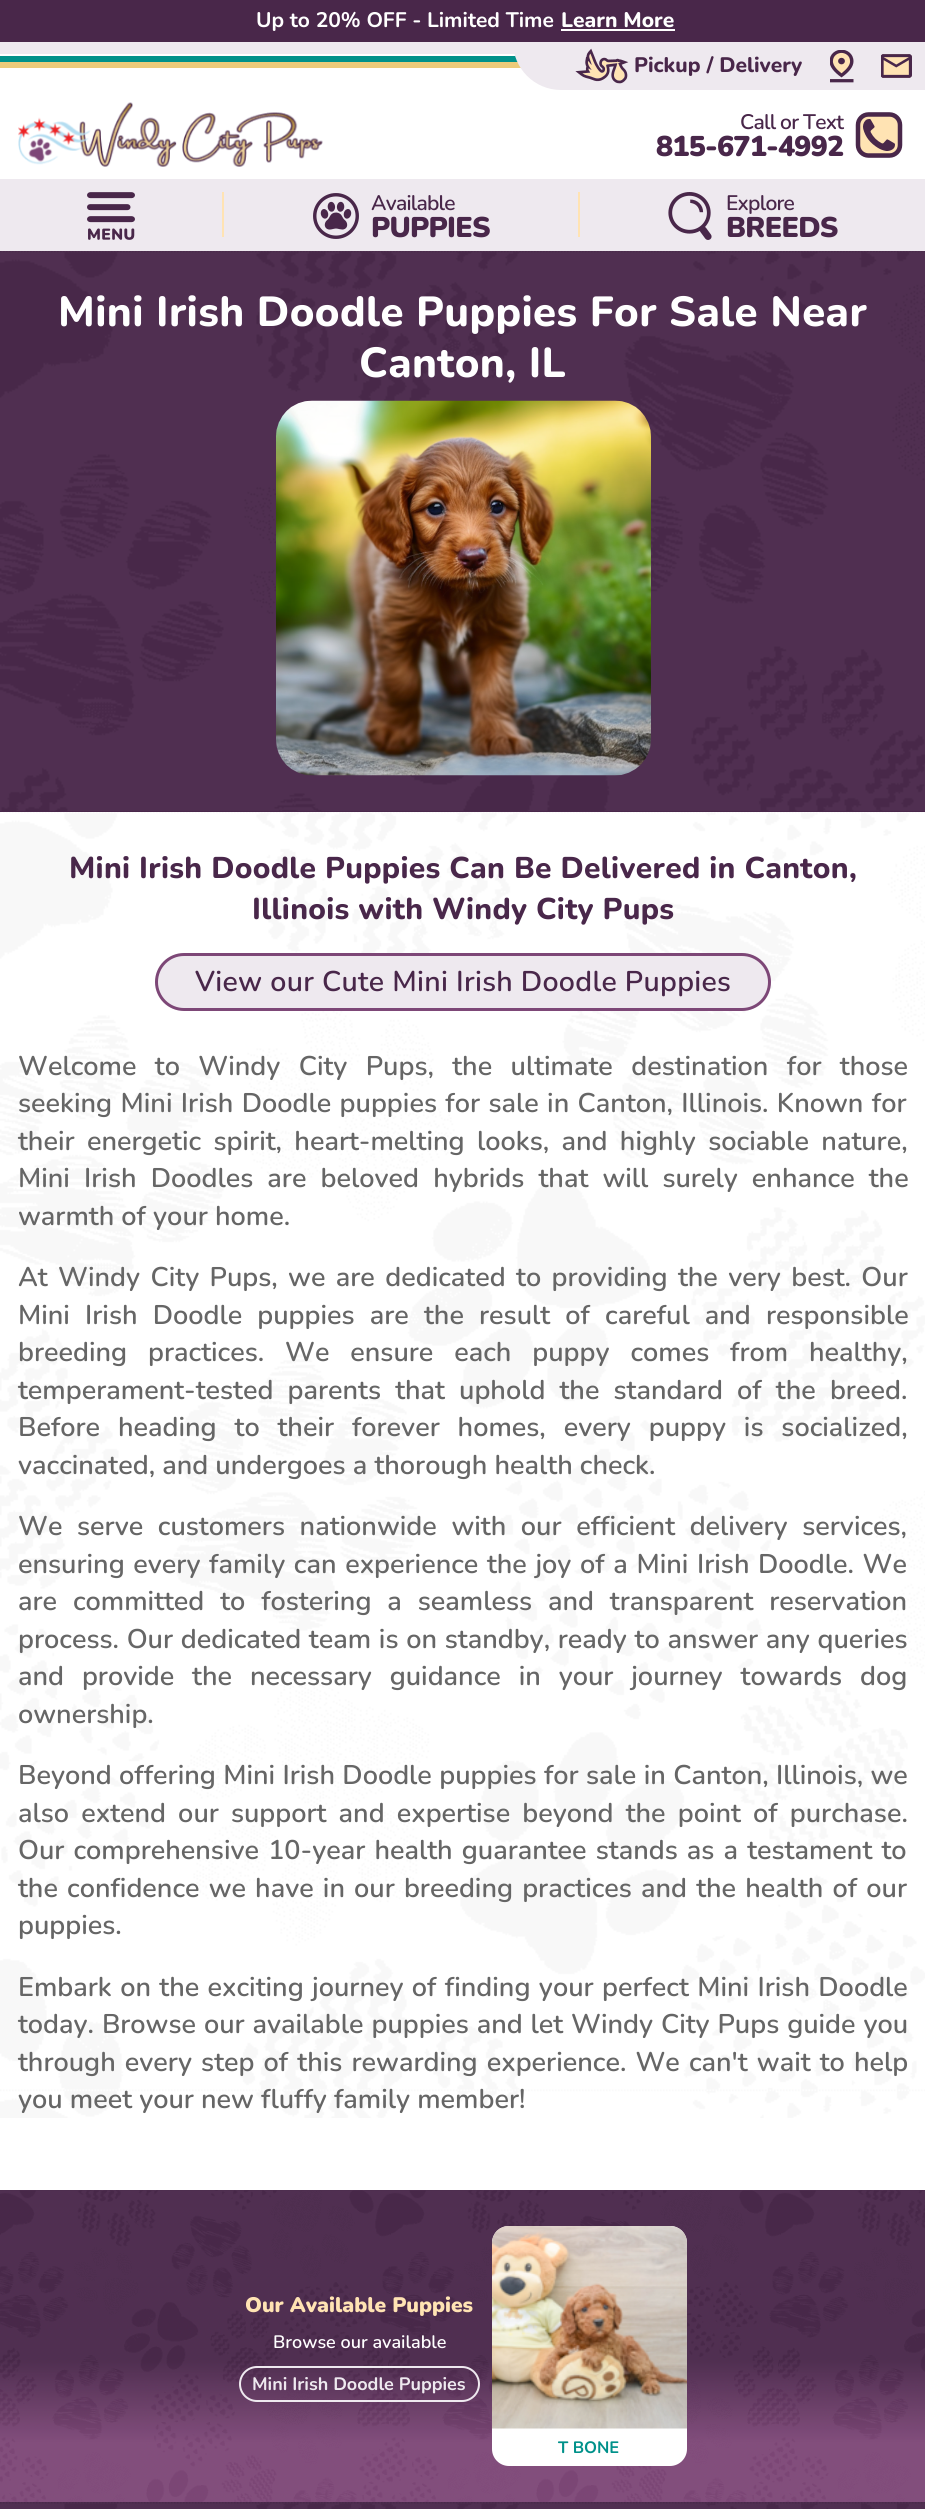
#include <cairo.h>
#include <math.h>
#include <stddef.h>

typedef struct { const char *family; double size; int italic, bold; unsigned color; } style_t;
static cairo_t *ctx;

static void ink(unsigned color) {
    cairo_set_source_rgb(ctx, (color >> 16) / 255.0, (color >> 8 & 255) / 255.0, (color & 255) / 255.0);
}

static void write(double x, double y, const char *s, const style_t *st) {
    cairo_select_font_face(ctx, st->family, st->italic ? CAIRO_FONT_SLANT_ITALIC : CAIRO_FONT_SLANT_NORMAL,
        st->bold ? CAIRO_FONT_WEIGHT_BOLD : CAIRO_FONT_WEIGHT_NORMAL);
    cairo_set_font_size(ctx, st->size);
    ink(st->color);
    cairo_move_to(ctx, x, y);
    cairo_show_text(ctx, s);
}

static void write_spaced(double x, double y, const char *s, double letter, double word) {
    cairo_move_to(ctx, x, y);
    while (*s) {
        char ch[5] = {0};
        int n = 0;
        do ch[n++] = *s++; while ((*s & 0xC0) == 0x80);
        cairo_show_text(ctx, ch);
        cairo_rel_move_to(ctx, letter + word * (*ch == ' '), 0);
    }
}

static void block(double x, double y, double w, double h, unsigned color) {
    ink(color);
    cairo_rectangle(ctx, x, y, w, h);
    cairo_fill(ctx);
}

static void round_path(double x, double y, double w, double h, double r) {
    cairo_new_sub_path(ctx);
    cairo_arc(ctx, x + w - r, y + h - r, r, 0, M_PI / 2);
    cairo_arc(ctx, x + r, y + h - r, r, M_PI / 2, M_PI);
    cairo_arc(ctx, x + r, y + r, r, M_PI, 1.5 * M_PI);
    cairo_arc(ctx, x + w - r, y + r, r, 1.5 * M_PI, 2 * M_PI);
    cairo_close_path(ctx);
}

static void paste(const char *path, double x, double y, double w, double h) {
    cairo_surface_t *image = cairo_image_surface_create_from_png(path);
    cairo_save(ctx);
    cairo_set_source_surface(ctx, image, x, y);
    cairo_rectangle(ctx, x, y, w, h);
    cairo_fill(ctx);
    cairo_restore(ctx);
    cairo_surface_destroy(image);
}

static const style_t s1 = {"Nunito", 21, 0, 1, 0xffffff};
static const style_t s2 = {"Nunito ExtraBold", 21, 0, 0, 0xffffff};
static const style_t s3 = {"Nunito ExtraBold", 21, 0, 0, 0x49274a};
static const style_t s4 = {"Nunito SemiBold", 27, 0, 0, 0x666666};
static const style_t s5 = {"Nunito Black", 21, 0, 0, 0xffe3b3};
static const style_t s6 = {"Nunito SemiBold", 18, 0, 0, 0xffffff};
static const style_t s7 = {"Nunito", 18, 0, 1, 0xeee9ef};
static const style_t s8 = {"Nunito", 16.5, 0, 1, 0x00918a};

int main(void) {
    cairo_surface_t *surface = cairo_image_surface_create(CAIRO_FORMAT_RGB24, 925, 2509);
    ctx = cairo_create(surface);
    cairo_font_options_t *options = cairo_font_options_create();
    cairo_font_options_set_hint_metrics(options, CAIRO_HINT_METRICS_OFF);
    cairo_font_options_set_hint_style(options, CAIRO_HINT_STYLE_NONE);
    cairo_set_font_options(ctx, options);
    cairo_set_miter_limit(ctx, 4);
    cairo_pattern_t *gradient;
    ink(0xffffff);
    cairo_paint(ctx);
    block(0, 0, 925, 42, 0x49274a);
    write(256, 27, "Up to 20% OFF - Limited Time", &s1);
    write(561, 27, "Learn More", &s2);
    block(561, 29, 114, 2, 0xffffff);
    block(0, 42, 514, 6, 0xeee9ef);
    block(0, 48, 515, 6, 0xeee9ef);
    block(0, 56, 518, 6, 0x00918a);
    block(0, 62, 521, 6, 0xeccb7a);
    ink(0xeee9ef);
    cairo_new_path(ctx);
    cairo_move_to(ctx, 513, 42);
    cairo_line_to(ctx, 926, 42);
    cairo_line_to(ctx, 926, 90);
    cairo_line_to(ctx, 561, 90);
    cairo_curve_to(ctx, 534.5, 90, 513, 68.5, 513, 42);
    cairo_close_path(ctx);
    cairo_fill(ctx);
    paste("pic1.png", 575, 48, 54, 36);
    write(634, 72, "Pickup / Delivery", &s3);
    paste("pic2.png", 830, 50, 24, 33);
    paste("pic3.png", 881, 54, 31, 24);
    paste("pic4.png", 18, 102, 305, 65);
    cairo_select_font_face(ctx, "Nunito SemiBold", CAIRO_FONT_SLANT_NORMAL, CAIRO_FONT_WEIGHT_NORMAL);
    write_spaced(740, 129, "Call or Text", -0.75, 0);
    cairo_select_font_face(ctx, "Nunito Black", CAIRO_FONT_SLANT_NORMAL, CAIRO_FONT_WEIGHT_NORMAL);
    cairo_set_font_size(ctx, 28.5);
    write_spaced(656, 156, "815-671-4992", -0.75, 0);
    paste("pic5.png", 855, 112, 48, 46);
    block(0, 179, 925, 72, 0xeee9ef);
    paste("pic6.png", 87, 192, 48, 48);
    block(222, 192, 2, 45, 0xffe3b3);
    paste("pic7.png", 313, 193, 46, 46);
    cairo_select_font_face(ctx, "Nunito SemiBold", CAIRO_FONT_SLANT_NORMAL, CAIRO_FONT_WEIGHT_NORMAL);
    cairo_set_font_size(ctx, 21);
    ink(0x49274a);
    write_spaced(371, 210, "Available", -0.75, 0);
    cairo_select_font_face(ctx, "Nunito Black", CAIRO_FONT_SLANT_NORMAL, CAIRO_FONT_WEIGHT_NORMAL);
    cairo_set_font_size(ctx, 28.5);
    write_spaced(371, 237, "PUPPIES", -0.75, 0);
    block(578, 192, 2, 45, 0xffe3b3);
    paste("pic8.png", 668, 192, 44, 48);
    cairo_select_font_face(ctx, "Nunito SemiBold", CAIRO_FONT_SLANT_NORMAL, CAIRO_FONT_WEIGHT_NORMAL);
    cairo_set_font_size(ctx, 21);
    ink(0x49274a);
    write_spaced(726, 210, "Explore", -0.75, 0);
    cairo_select_font_face(ctx, "Nunito Black", CAIRO_FONT_SLANT_NORMAL, CAIRO_FONT_WEIGHT_NORMAL);
    cairo_set_font_size(ctx, 28.5);
    write_spaced(726, 237, "BREEDS", -0.75, 0);
    block(0, 251, 925, 561, 0x49274a);
    paste("pic9.png", 0, 251, 925, 560);
    cairo_select_font_face(ctx, "Nunito ExtraBold", CAIRO_FONT_SLANT_NORMAL, CAIRO_FONT_WEIGHT_NORMAL);
    cairo_set_font_size(ctx, 42);
    ink(0xffffff);
    write_spaced(58, 326, "Mini Irish Doodle Puppies For Sale Near", 0.4, 0);
    write_spaced(359, 377, "Canton, IL", 0.4, 0);
    paste("pic10.png", 276, 400, 375, 376);
    paste("pic11.png", 0, 812, 925, 1306);
    cairo_set_font_size(ctx, 30);
    ink(0x49274a);
    write_spaced(69, 878, "Mini Irish Doodle Puppies Can Be Delivered in Canton,", 0.3, 0);
    write_spaced(252, 919, "Illinois with Windy City Pups", 0.3, 0);
    ink(0xeee9ef);
    round_path(156.5, 954.5, 613, 55, 27.5);
    cairo_fill_preserve(ctx);
    ink(0x7d4777);
    cairo_set_line_width(ctx, 3);
    cairo_stroke(ctx);
    cairo_select_font_face(ctx, "Nunito SemiBold", CAIRO_FONT_SLANT_NORMAL, CAIRO_FONT_WEIGHT_NORMAL);
    cairo_set_font_size(ctx, 28.5);
    ink(0x49274a);
    write_spaced(195, 991, "View our Cute Mini Irish Doodle Puppies", 0.3, 0);
    cairo_set_font_size(ctx, 27);
    ink(0x666666);
    write_spaced(18, 1075, "Welcome to Windy City Pups, the ultimate destination for those", 0, 11.25);
    write_spaced(18, 1112, "seeking Mini Irish Doodle puppies for sale in Canton, Illinois. Known for", 0, 1.25);
    write_spaced(18, 1150, "their energetic spirit, heart-melting looks, and highly sociable nature,", 0, 5.25);
    write_spaced(18, 1187, "Mini Irish Doodles are beloved hybrids that will surely enhance the", 0, 7);
    write(18, 1225, "warmth of your home.", &s4);
    write_spaced(18, 1286, "At Windy City Pups, we are dedicated to providing the very best. Our", 0, 3.25);
    write_spaced(18, 1324, "Mini Irish Doodle puppies are the result of careful and responsible", 0, 8);
    write_spaced(18, 1361, "breeding practices. We ensure each puppy comes from healthy,", 0, 13.75);
    write_spaced(18, 1399, "temperament-tested parents that uphold the standard of the breed.", 0, 7);
    write_spaced(18, 1436, "Before heading to their forever homes, every puppy is socialized,", 0, 10.75);
    write(18, 1474, "vaccinated, and undergoes a thorough health check.", &s4);
    write_spaced(18, 1535, "We serve customers nationwide with our efficient delivery services,", 0, 7.5);
    write_spaced(18, 1573, "ensuring every family can experience the joy of a Mini Irish Doodle. We", 0, 1.5);
    write_spaced(18, 1610, "are committed to fostering a seamless and transparent reservation", 0, 8.75);
    write_spaced(18, 1648, "process. Our dedicated team is on standby, ready to answer any queries", 0, 0.6);
    write_spaced(18, 1685, "and provide the necessary guidance in your journey towards dog", 0, 10.75);
    write(18, 1723, "ownership.", &s4);
    write_spaced(18, 1784, "Beyond offering Mini Irish Doodle puppies for sale in Canton, Illinois, we", 0, 0.25);
    write_spaced(18, 1822, "also extend our support and expertise beyond the point of purchase.", 0, 5);
    write_spaced(18, 1859, "Our comprehensive 10-year health guarantee stands as a testament to", 0, 2);
    write_spaced(18, 1897, "the confidence we have in our breeding practices and the health of our", 0, 2);
    write(18, 1934, "puppies.", &s4);
    write_spaced(18, 1996, "Embark on the exciting journey of finding your perfect Mini Irish Doodle", 0, 1.25);
    write_spaced(18, 2033, "today. Browse our available puppies and let Windy City Pups guide you", 0, 0.75);
    write_spaced(18, 2071, "through every step of this rewarding experience. We can't wait to help", 0, 2);
    write(18, 2108, "you meet your new fluffy family member!", &s4);
    gradient = cairo_pattern_create_linear(463, 2190, 463, 2502);
    cairo_pattern_add_color_stop_rgba(gradient, 0.55, 0.286, 0.153, 0.29, 1);
    cairo_pattern_add_color_stop_rgba(gradient, 0.81, 0.49, 0.278, 0.467, 1);
    cairo_set_source(ctx, gradient);
    cairo_pattern_destroy(gradient);
    cairo_rectangle(ctx, 0, 2190, 925, 312);
    cairo_fill(ctx);
    paste("pic12.png", 0, 2190, 925, 312);
    write(245, 2312, "Our Available Puppies", &s5);
    write(273, 2348, "Browse our available", &s6);
    round_path(240, 2367, 239, 34, 17);
    ink(0xeee9ef);
    cairo_set_line_width(ctx, 2);
    cairo_stroke(ctx);
    write(252, 2390, "Mini Irish Doodle Puppies", &s7);
    ink(0xffffff);
    round_path(492, 2226, 195, 240, 17);
    cairo_fill(ctx);
    paste("pic13.png", 492, 2226, 195, 203);
    write(558, 2453, "T BONE", &s8);
    block(0, 2502, 925, 7, 0x49274a);
    paste("pic14.png", 0, 2502, 925, 7);
    cairo_surface_write_to_png(surface, "screenshot.png");
    cairo_font_options_destroy(options);
    cairo_destroy(ctx);
    cairo_surface_destroy(surface);
    return 0;
}
